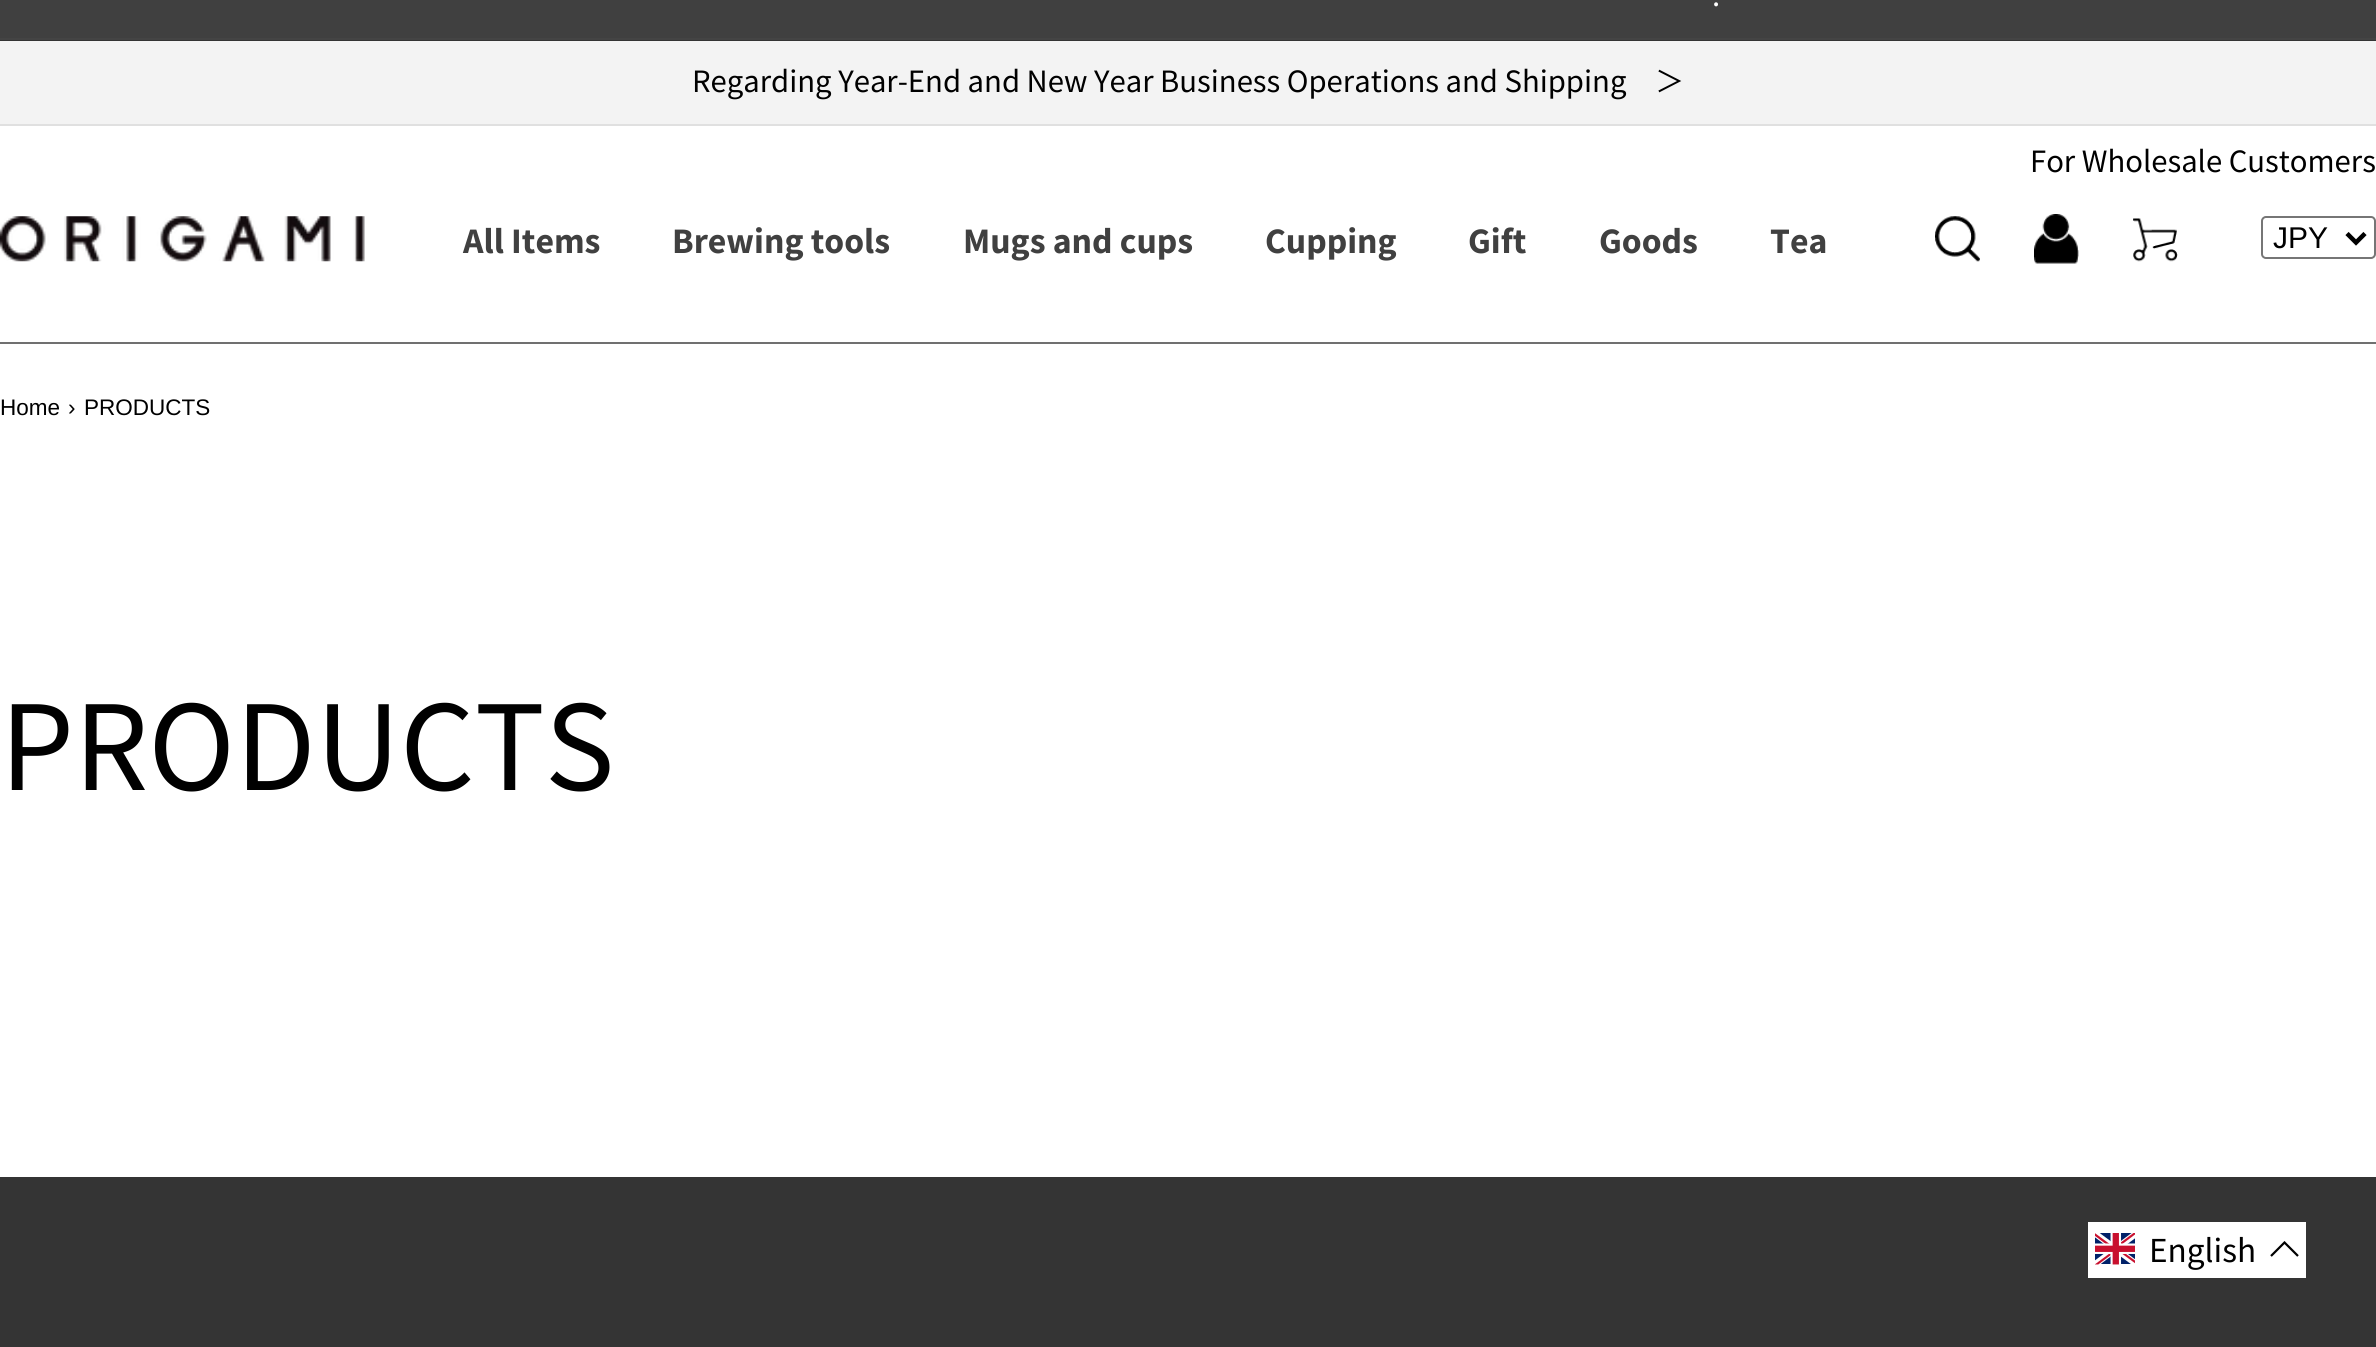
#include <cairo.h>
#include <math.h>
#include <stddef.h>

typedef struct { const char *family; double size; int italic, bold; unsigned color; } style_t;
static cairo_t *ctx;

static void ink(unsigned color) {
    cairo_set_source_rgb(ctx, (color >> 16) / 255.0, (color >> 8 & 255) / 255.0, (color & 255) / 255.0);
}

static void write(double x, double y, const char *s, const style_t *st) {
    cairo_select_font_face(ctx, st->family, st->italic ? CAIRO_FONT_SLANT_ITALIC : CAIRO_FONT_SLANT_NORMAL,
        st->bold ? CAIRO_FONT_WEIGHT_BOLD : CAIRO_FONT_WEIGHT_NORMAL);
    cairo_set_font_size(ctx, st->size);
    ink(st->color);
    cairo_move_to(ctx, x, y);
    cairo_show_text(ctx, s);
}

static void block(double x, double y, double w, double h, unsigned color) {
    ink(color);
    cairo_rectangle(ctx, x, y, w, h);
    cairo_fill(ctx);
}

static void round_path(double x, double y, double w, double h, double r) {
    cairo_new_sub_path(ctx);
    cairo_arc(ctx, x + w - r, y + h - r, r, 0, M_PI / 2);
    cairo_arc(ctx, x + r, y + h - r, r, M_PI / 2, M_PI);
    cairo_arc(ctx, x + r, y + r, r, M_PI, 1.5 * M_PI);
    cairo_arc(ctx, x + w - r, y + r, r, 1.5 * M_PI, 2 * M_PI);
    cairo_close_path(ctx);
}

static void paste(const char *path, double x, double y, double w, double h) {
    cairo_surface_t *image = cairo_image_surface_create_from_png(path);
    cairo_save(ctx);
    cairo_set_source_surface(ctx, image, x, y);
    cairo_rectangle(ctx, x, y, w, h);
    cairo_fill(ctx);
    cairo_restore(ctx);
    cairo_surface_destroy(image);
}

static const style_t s1 = {"Noto Sans JP", 29.25, 0, 0, 0xffffff};
static const style_t s2 = {"Noto Sans JP", 29.25, 0, 0, 0x000000};
static const style_t s3 = {"Noto Sans JP ExtraBold", 31.5, 0, 0, 0x404040};
static const style_t s4 = {"Liberation Sans", 30, 0, 0, 0x000000};
static const style_t s5 = {"Liberation Sans", 22.5, 0, 0, 0x000000};
static const style_t s6 = {"Noto Sans JP", 117, 0, 0, 0x000000};
static const style_t s7 = {"Noto Sans JP", 31.5, 0, 0, 0x000000};

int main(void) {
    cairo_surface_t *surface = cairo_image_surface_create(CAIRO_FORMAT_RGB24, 2376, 1347);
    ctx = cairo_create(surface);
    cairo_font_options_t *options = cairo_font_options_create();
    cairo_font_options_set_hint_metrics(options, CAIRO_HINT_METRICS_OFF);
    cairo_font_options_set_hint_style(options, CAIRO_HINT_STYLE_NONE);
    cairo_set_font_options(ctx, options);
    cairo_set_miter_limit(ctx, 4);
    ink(0xffffff);
    cairo_paint(ctx);
    block(0, 40, 2376, 1, 0x343434);
    block(0, 38, 2376, 2, 0x444444);
    block(0, 0, 2376, 38, 0x404040);
    write(1712, 6, ".", &s1);
    block(0, 41, 2376, 83, 0xf3f3f3);
    block(0, 124, 2376, 2, 0xe0e0e0);
    write(692, 92, "Regarding Year-End and New Year Business Operations and Shipping", &s2);
    write(1655, 92, "＞", &s2);
    block(0, 342, 2376, 2, 0x707070);
    write(2030, 172, "For Wholesale Customers", &s2);
    paste("pic1.png", 0, 216, 365, 46);
    write(463, 253, "All Items", &s3);
    write(672, 253, "Brewing tools", &s3);
    write(963, 253, "Mugs and cups", &s3);
    write(1265, 253, "Cupping", &s3);
    write(1468, 253, "Gift", &s3);
    write(1599, 253, "Goods", &s3);
    write(1770, 253, "Tea", &s3);
    paste("pic2.png", 1935, 216, 45, 46);
    paste("pic3.png", 2034, 214, 45, 50);
    paste("pic4.png", 2133, 218, 45, 44);
    round_path(2262, 217, 113, 41, 4);
    ink(0x767676);
    cairo_stroke(ctx);
    cairo_new_path(ctx);
    cairo_move_to(ctx, 2347, 233.5);
    cairo_line_to(ctx, 2356, 242.5);
    cairo_line_to(ctx, 2365, 233.5);
    ink(0x000000);
    cairo_set_line_width(ctx, 4.5);
    cairo_stroke(ctx);
    write(2273, 248, "JPY", &s4);
    write(0, 415, "Home", &s5);
    write(68, 415, "›", &s5);
    write(84, 415, "PRODUCTS", &s5);
    write(0, 790, "PRODUCTS", &s6);
    block(0, 1177, 2376, 170, 0x343434);
    block(2088, 1222, 218, 56, 0xffffff);
    paste("pic5.png", 2095, 1233, 40, 32);
    write(2149, 1262, "English", &s7);
    cairo_new_path(ctx);
    cairo_move_to(ctx, 2298, 1256);
    cairo_line_to(ctx, 2284.5, 1242.5);
    cairo_line_to(ctx, 2271, 1256);
    cairo_set_line_width(ctx, 2.2);
    cairo_stroke(ctx);
    cairo_surface_write_to_png(surface, "screenshot.png");
    cairo_font_options_destroy(options);
    cairo_destroy(ctx);
    cairo_surface_destroy(surface);
    return 0;
}
